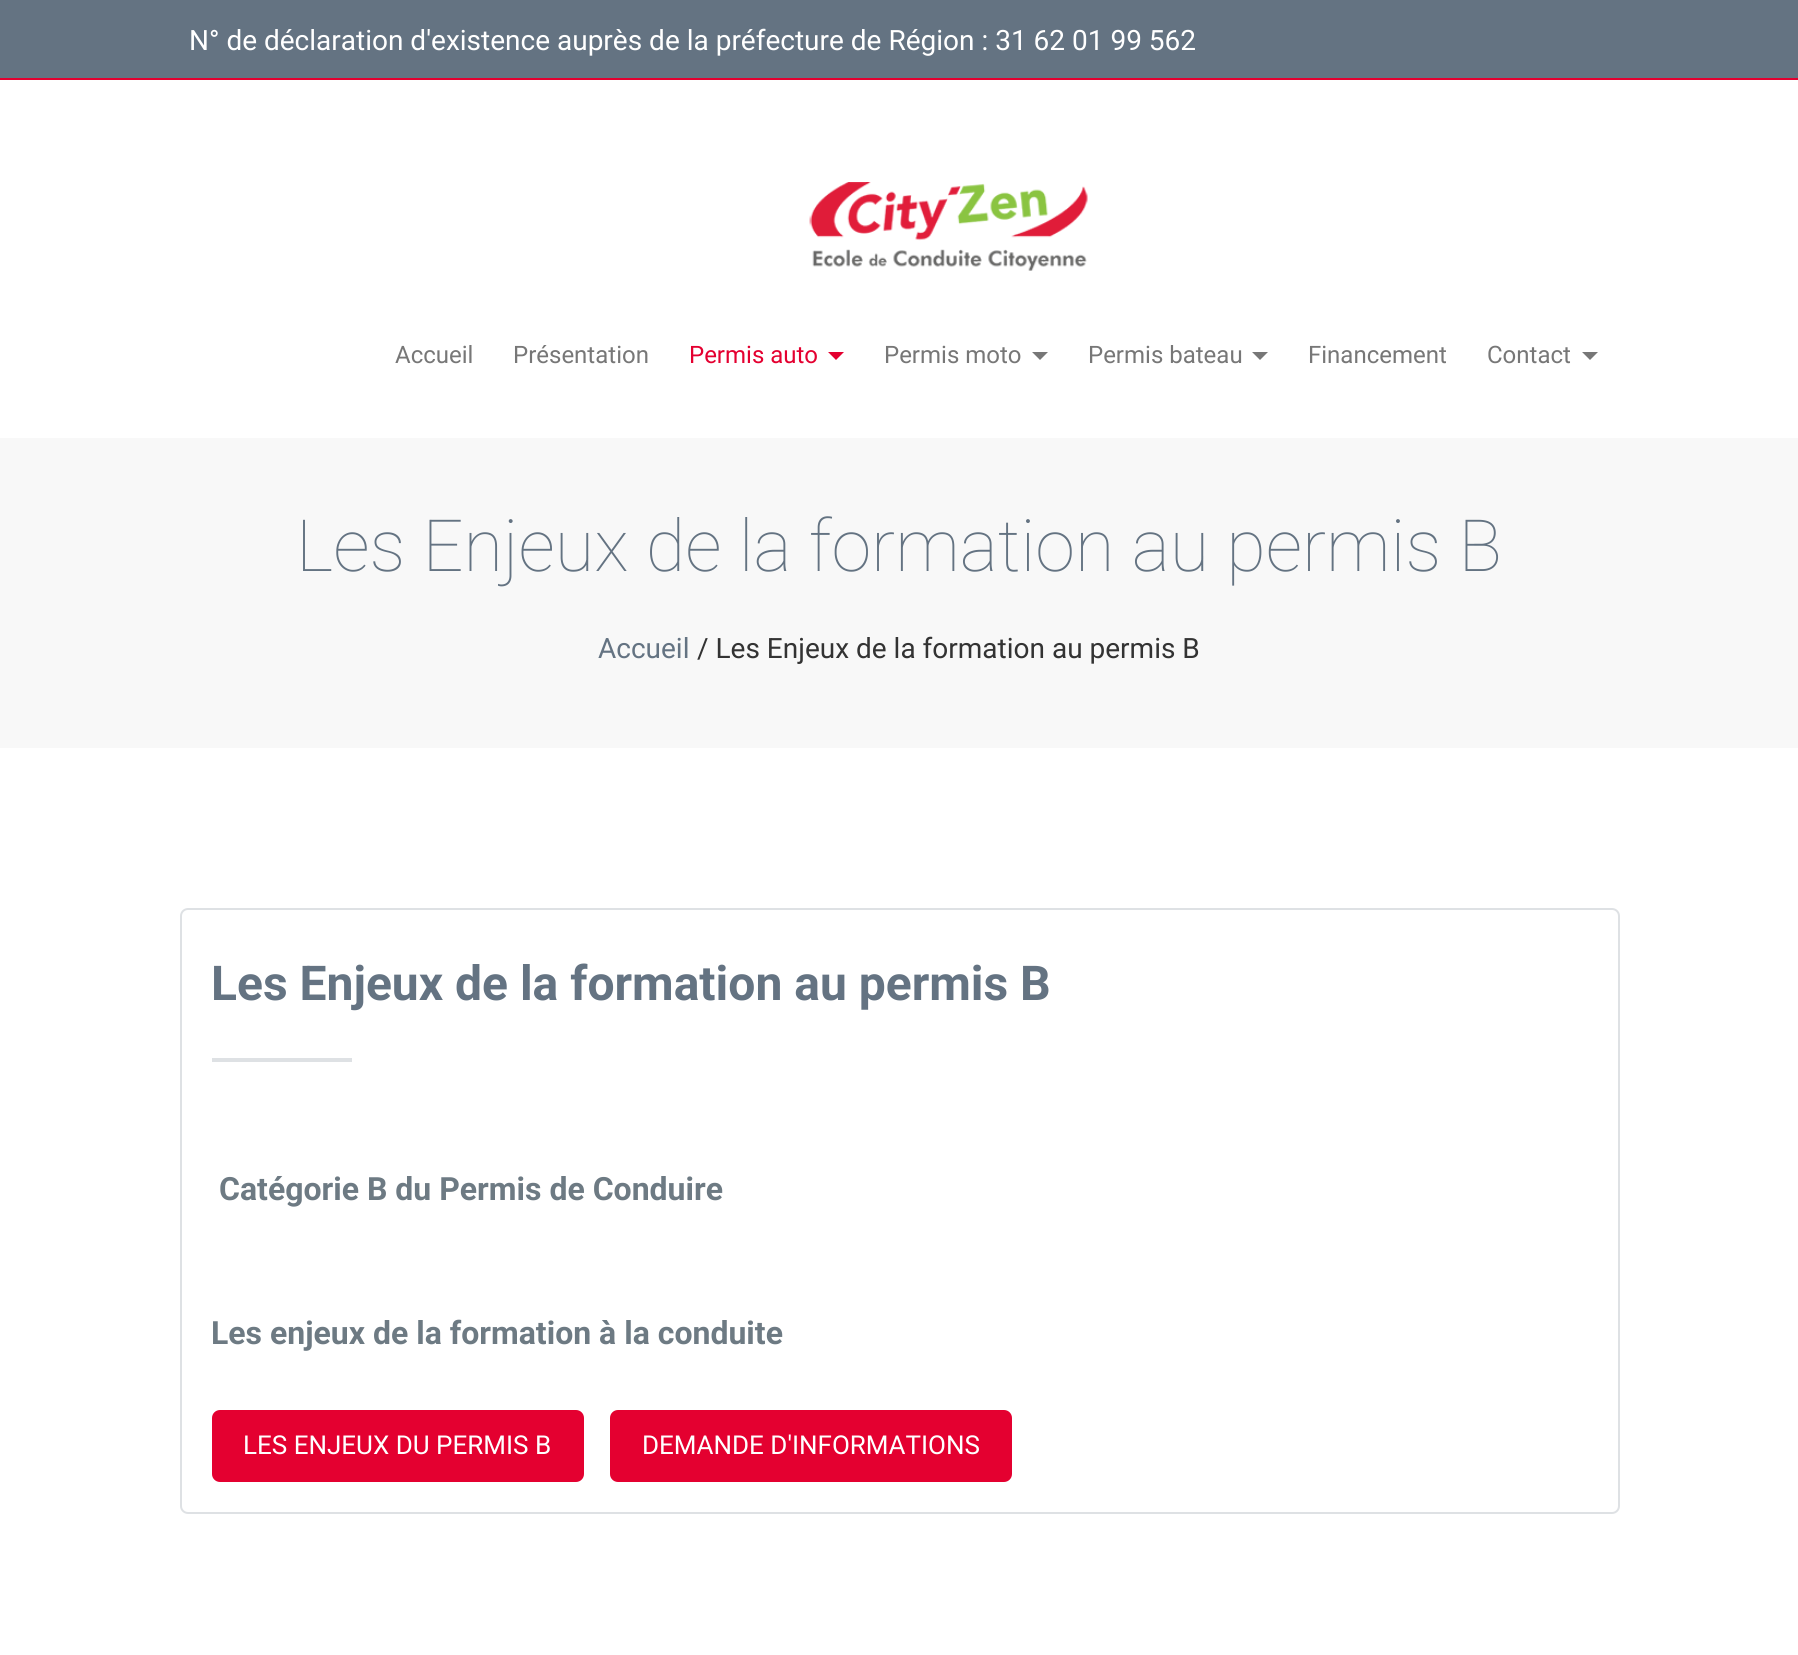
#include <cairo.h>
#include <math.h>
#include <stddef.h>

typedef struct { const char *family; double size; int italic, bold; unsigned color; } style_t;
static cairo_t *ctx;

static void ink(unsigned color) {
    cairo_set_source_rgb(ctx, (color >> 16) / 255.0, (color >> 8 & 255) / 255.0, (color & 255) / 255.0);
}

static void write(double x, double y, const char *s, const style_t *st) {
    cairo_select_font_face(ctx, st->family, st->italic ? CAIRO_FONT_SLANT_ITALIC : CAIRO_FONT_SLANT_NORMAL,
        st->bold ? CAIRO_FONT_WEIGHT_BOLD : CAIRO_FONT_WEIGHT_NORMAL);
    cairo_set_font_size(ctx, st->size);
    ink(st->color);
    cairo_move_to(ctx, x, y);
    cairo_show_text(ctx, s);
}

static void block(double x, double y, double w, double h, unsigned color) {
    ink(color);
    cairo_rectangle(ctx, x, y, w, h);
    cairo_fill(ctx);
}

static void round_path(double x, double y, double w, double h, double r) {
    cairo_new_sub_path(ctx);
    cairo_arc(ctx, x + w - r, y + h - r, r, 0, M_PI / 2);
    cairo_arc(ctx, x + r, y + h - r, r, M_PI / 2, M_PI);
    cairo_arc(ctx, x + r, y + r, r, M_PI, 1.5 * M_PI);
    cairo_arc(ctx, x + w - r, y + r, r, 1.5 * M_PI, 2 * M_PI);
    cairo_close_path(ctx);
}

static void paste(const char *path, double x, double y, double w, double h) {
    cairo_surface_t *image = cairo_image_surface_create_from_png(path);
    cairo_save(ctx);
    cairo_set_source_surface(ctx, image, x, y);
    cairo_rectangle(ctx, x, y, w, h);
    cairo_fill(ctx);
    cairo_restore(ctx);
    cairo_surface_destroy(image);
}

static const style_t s1 = {"Roboto", 28, 0, 0, 0xffffff};
static const style_t s2 = {"Roboto", 24, 0, 0, 0x777777};
static const style_t s3 = {"Roboto", 24, 0, 0, 0xe40030};
static const style_t s4 = {"Roboto Thin", 72, 0, 0, 0x647382};
static const style_t s5 = {"Roboto", 28, 0, 0, 0x647382};
static const style_t s6 = {"Roboto", 28, 0, 0, 0x333333};
static const style_t s7 = {"Roboto", 48, 0, 1, 0x647382};
static const style_t s8 = {"Roboto", 32, 0, 1, 0x6d7a83};
static const style_t s9 = {"Roboto", 26, 0, 0, 0xffffff};

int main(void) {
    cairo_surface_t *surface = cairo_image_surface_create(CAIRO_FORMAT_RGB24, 1798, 1655);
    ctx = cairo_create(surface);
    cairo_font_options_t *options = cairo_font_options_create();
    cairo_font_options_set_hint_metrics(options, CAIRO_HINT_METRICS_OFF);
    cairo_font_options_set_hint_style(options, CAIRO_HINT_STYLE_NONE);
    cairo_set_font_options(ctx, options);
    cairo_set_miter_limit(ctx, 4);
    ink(0xffffff);
    cairo_paint(ctx);
    block(0, 0, 1798, 78, 0x647382);
    block(0, 78, 1798, 2, 0xe40030);
    write(189, 50, "N° de déclaration d'existence auprès de la préfecture de Région : 31 62 01 99 562", &s1);
    paste("pic1.png", 809, 182, 279, 89);
    write(395, 363, "Accueil", &s2);
    write(513, 363, "Présentation", &s2);
    write(689, 363, "Permis auto", &s3);
    cairo_new_path(ctx);
    cairo_move_to(ctx, 828, 352);
    cairo_line_to(ctx, 844, 352);
    cairo_line_to(ctx, 836, 360);
    cairo_close_path(ctx);
    cairo_fill(ctx);
    write(884, 363, "Permis moto", &s2);
    cairo_new_path(ctx);
    cairo_move_to(ctx, 1032, 352);
    cairo_line_to(ctx, 1048, 352);
    cairo_line_to(ctx, 1040, 360);
    cairo_close_path(ctx);
    cairo_fill(ctx);
    write(1088, 363, "Permis bateau", &s2);
    cairo_new_path(ctx);
    cairo_move_to(ctx, 1252, 352);
    cairo_line_to(ctx, 1268, 352);
    cairo_line_to(ctx, 1260, 360);
    cairo_close_path(ctx);
    cairo_fill(ctx);
    write(1308, 363, "Financement", &s2);
    write(1487, 363, "Contact", &s2);
    cairo_new_path(ctx);
    cairo_move_to(ctx, 1582, 352);
    cairo_line_to(ctx, 1598, 352);
    cairo_line_to(ctx, 1590, 360);
    cairo_close_path(ctx);
    cairo_fill(ctx);
    block(0, 438, 1798, 310, 0xf8f8f8);
    write(296, 571, "Les Enjeux de la formation au permis B", &s4);
    write(598, 658, "Accueil", &s5);
    write(697, 658, "/ Les Enjeux de la formation au permis B", &s6);
    round_path(181, 909, 1438, 604, 7);
    ink(0xdee1e4);
    cairo_stroke(ctx);
    write(211, 1000, "Les Enjeux de la formation au permis B", &s7);
    block(212, 1058, 140, 4, 0xdee1e4);
    write(219, 1200, "Catégorie B du Permis de Conduire", &s8);
    write(211, 1344, "Les enjeux de la formation à la conduite", &s8);
    ink(0xe40030);
    round_path(212, 1410, 372, 72, 8);
    cairo_fill(ctx);
    write(243, 1454, "LES ENJEUX DU PERMIS B", &s9);
    ink(0xe40030);
    round_path(610, 1410, 402, 72, 8);
    cairo_fill(ctx);
    write(642, 1454, "DEMANDE D'INFORMATIONS", &s9);
    cairo_surface_write_to_png(surface, "screenshot.png");
    cairo_font_options_destroy(options);
    cairo_destroy(ctx);
    cairo_surface_destroy(surface);
    return 0;
}
